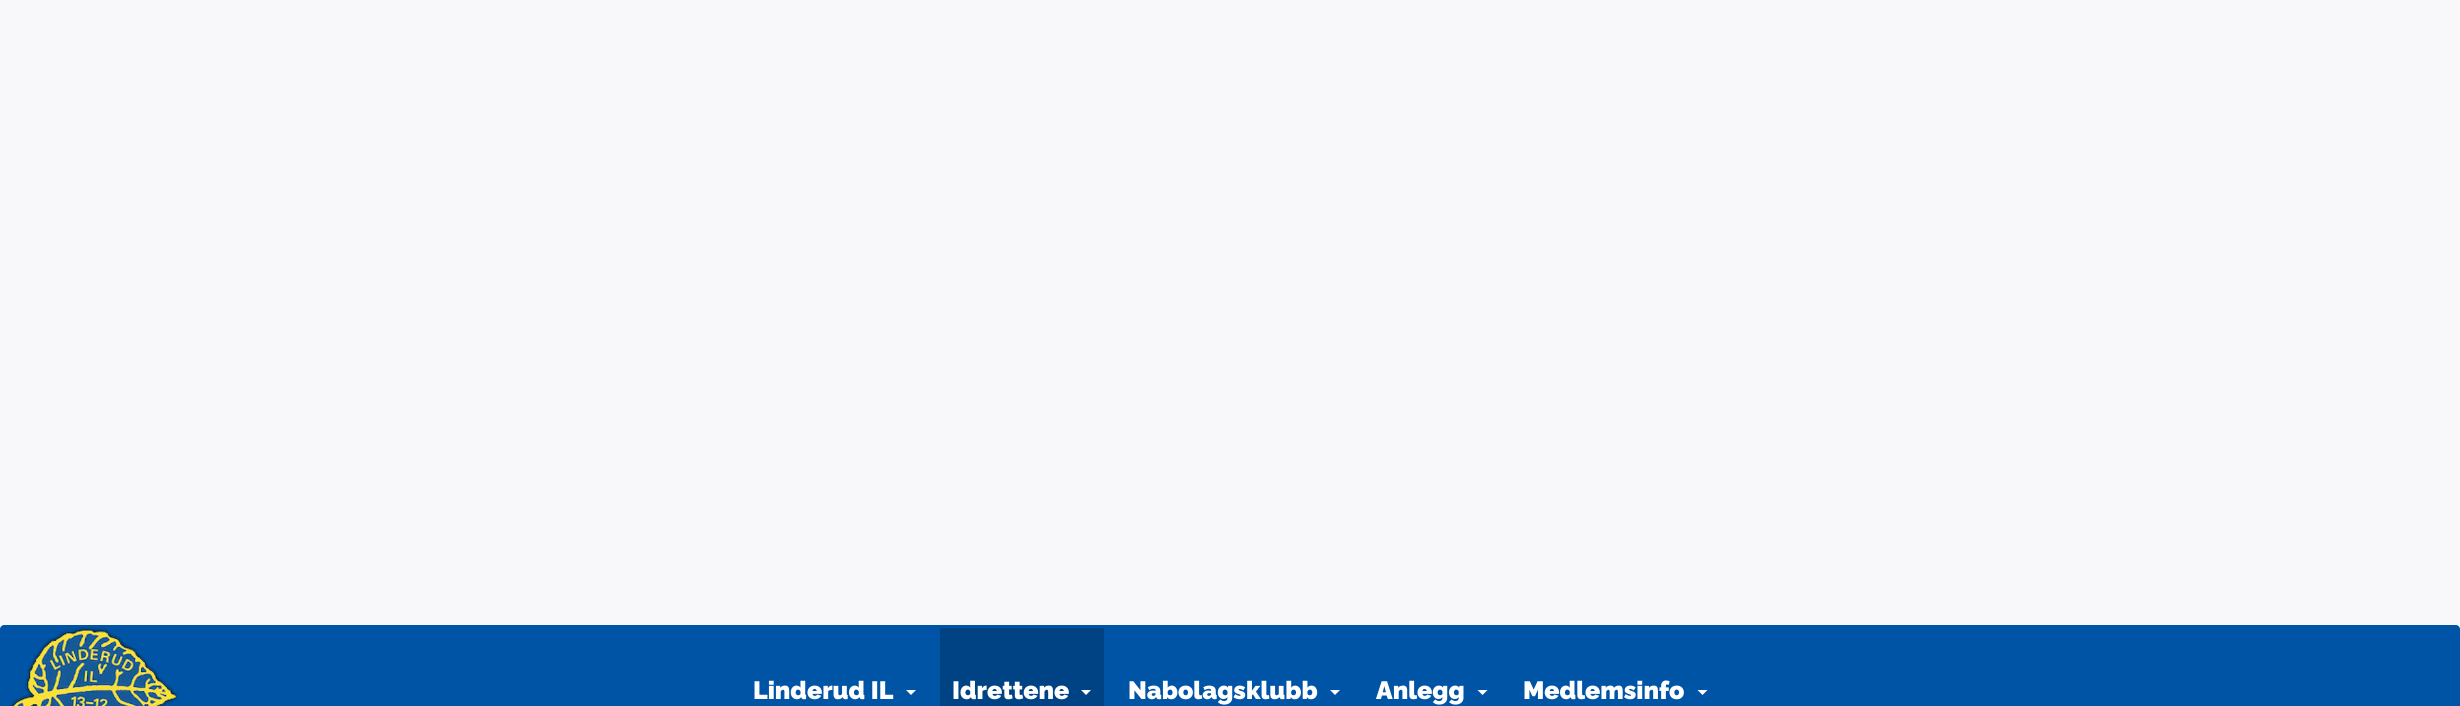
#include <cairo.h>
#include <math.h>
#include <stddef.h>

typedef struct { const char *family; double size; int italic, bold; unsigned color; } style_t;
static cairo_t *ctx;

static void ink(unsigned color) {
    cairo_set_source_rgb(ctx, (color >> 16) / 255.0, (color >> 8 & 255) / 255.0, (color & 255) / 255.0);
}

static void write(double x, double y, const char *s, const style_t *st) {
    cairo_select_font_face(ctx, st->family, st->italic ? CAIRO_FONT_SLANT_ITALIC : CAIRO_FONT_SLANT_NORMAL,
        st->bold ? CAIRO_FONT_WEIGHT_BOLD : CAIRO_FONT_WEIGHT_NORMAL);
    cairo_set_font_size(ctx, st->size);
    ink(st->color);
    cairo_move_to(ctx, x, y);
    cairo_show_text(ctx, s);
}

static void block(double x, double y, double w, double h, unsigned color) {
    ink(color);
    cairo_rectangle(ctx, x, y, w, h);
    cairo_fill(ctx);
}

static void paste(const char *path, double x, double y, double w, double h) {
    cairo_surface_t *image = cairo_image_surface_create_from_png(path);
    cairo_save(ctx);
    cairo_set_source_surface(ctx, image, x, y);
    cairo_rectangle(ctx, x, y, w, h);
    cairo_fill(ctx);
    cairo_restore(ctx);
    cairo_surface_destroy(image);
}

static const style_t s1 = {"Raleway Black", 25, 0, 0, 0xffffff};

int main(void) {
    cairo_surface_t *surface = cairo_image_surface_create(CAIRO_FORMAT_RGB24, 2460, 706);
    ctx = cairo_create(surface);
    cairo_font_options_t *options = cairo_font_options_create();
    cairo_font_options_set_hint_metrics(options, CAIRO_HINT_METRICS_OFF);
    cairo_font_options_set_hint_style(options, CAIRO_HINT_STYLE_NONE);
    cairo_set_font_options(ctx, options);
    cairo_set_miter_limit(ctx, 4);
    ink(0xf8f8fa);
    cairo_paint(ctx);
    ink(0x0054a6);
    cairo_new_path(ctx);
    cairo_move_to(ctx, 4, 625);
    cairo_line_to(ctx, 2456, 625);
    cairo_curve_to(ctx, 2458, 625, 2460, 627, 2460, 629);
    cairo_line_to(ctx, 2460, 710);
    cairo_line_to(ctx, 0, 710);
    cairo_line_to(ctx, 0, 629);
    cairo_curve_to(ctx, 0, 627, 2, 625, 4, 625);
    cairo_close_path(ctx);
    cairo_fill(ctx);
    paste("pic1.png", 9, 627, 170, 79);
    write(753, 699, "Linderud IL", &s1);
    cairo_new_path(ctx);
    cairo_move_to(ctx, 906, 690);
    cairo_line_to(ctx, 916, 690);
    cairo_line_to(ctx, 911, 695);
    cairo_close_path(ctx);
    cairo_fill(ctx);
    block(940, 628, 164, 78, 0x004385);
    write(952, 699, "Idrettene", &s1);
    cairo_new_path(ctx);
    cairo_move_to(ctx, 1081, 690);
    cairo_line_to(ctx, 1091, 690);
    cairo_line_to(ctx, 1086, 695);
    cairo_close_path(ctx);
    cairo_fill(ctx);
    write(1128, 699, "Nabolagsklubb", &s1);
    cairo_new_path(ctx);
    cairo_move_to(ctx, 1330, 690);
    cairo_line_to(ctx, 1340, 690);
    cairo_line_to(ctx, 1335, 695);
    cairo_close_path(ctx);
    cairo_fill(ctx);
    write(1376, 699, "Anlegg", &s1);
    cairo_new_path(ctx);
    cairo_move_to(ctx, 1477.5, 690);
    cairo_line_to(ctx, 1487.5, 690);
    cairo_line_to(ctx, 1482.5, 695);
    cairo_close_path(ctx);
    cairo_fill(ctx);
    write(1523, 699, "Medlemsinfo", &s1);
    cairo_new_path(ctx);
    cairo_move_to(ctx, 1697.5, 690);
    cairo_line_to(ctx, 1707.5, 690);
    cairo_line_to(ctx, 1702.5, 695);
    cairo_close_path(ctx);
    cairo_fill(ctx);
    cairo_surface_write_to_png(surface, "screenshot.png");
    cairo_font_options_destroy(options);
    cairo_destroy(ctx);
    cairo_surface_destroy(surface);
    return 0;
}
